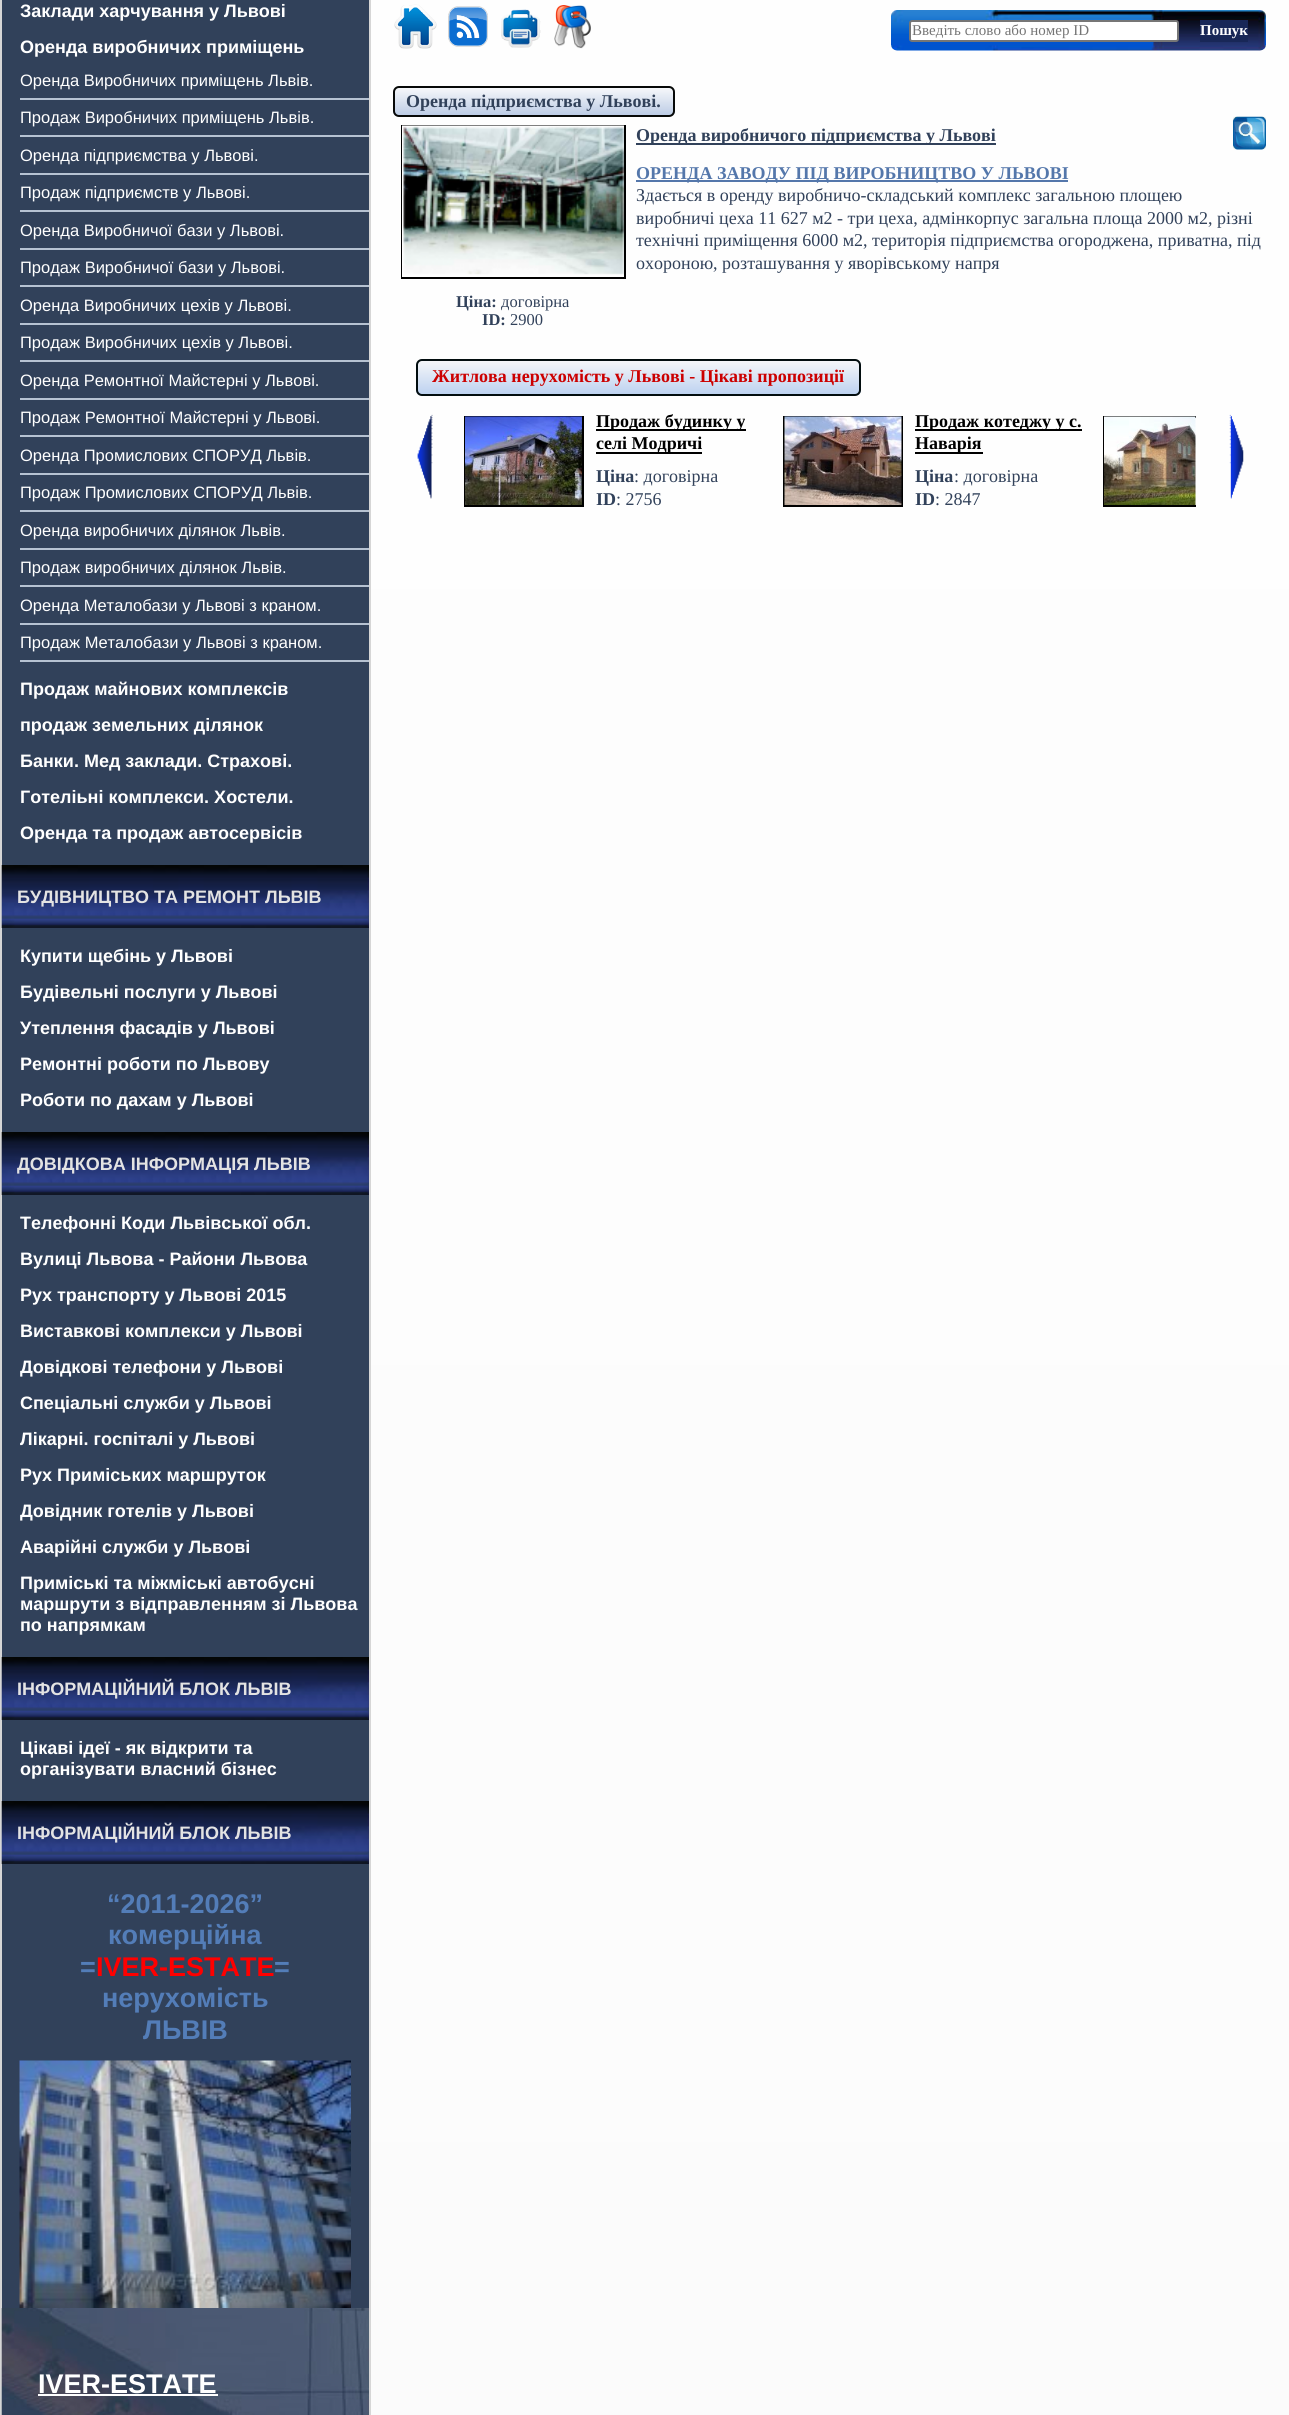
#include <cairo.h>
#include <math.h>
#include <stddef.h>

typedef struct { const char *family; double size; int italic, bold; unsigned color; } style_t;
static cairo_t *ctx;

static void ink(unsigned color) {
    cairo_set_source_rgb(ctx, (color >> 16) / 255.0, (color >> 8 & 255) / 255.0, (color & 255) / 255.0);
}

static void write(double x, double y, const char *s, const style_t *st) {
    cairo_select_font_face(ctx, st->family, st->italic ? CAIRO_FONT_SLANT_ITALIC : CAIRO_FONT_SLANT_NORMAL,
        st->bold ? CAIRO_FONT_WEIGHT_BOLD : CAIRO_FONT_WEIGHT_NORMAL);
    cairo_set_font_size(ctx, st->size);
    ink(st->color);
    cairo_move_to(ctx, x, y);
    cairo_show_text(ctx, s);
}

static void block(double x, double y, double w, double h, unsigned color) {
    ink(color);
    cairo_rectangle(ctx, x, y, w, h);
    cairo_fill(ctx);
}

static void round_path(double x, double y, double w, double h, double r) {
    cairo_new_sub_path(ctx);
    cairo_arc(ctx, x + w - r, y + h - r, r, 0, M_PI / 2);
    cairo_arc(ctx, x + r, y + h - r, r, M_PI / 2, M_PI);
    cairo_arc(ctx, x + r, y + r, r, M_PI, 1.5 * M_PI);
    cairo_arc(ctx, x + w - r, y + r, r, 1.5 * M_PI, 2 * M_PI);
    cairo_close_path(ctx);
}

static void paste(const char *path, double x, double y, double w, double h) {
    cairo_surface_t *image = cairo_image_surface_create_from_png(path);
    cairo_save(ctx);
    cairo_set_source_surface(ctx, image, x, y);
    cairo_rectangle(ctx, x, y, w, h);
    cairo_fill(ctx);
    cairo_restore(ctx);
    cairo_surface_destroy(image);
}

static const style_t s1 = {"Liberation Sans", 18, 0, 1, 0xffffff};
static const style_t s2 = {"Liberation Sans", 16.5, 0, 0, 0xffffff};
static const style_t s3 = {"Liberation Sans", 18, 0, 1, 0xe3e3e3};
static const style_t s4 = {"Liberation Sans", 27, 0, 1, 0x537db8};
static const style_t s5 = {"Liberation Sans", 27, 0, 1, 0xff0000};
static const style_t s6 = {"Liberation Sans", 27, 0, 1, 0xffffff};
static const style_t s7 = {"Liberation Serif", 15, 0, 0, 0x757575};
static const style_t s8 = {"Liberation Serif", 15, 0, 1, 0xffffff};
static const style_t s9 = {"Liberation Serif", 18, 0, 1, 0x31415a};
static const style_t s10 = {"Liberation Serif", 18, 0, 1, 0x5477ab};
static const style_t s11 = {"Liberation Serif", 18, 0, 0, 0x31415a};
static const style_t s12 = {"Liberation Serif", 16.5, 0, 1, 0x31415a};
static const style_t s13 = {"Liberation Serif", 16.5, 0, 0, 0x31415a};
static const style_t s14 = {"Liberation Serif", 18, 0, 1, 0xcc0000};
static const style_t s15 = {"Liberation Serif", 18, 0, 1, 0x000000};

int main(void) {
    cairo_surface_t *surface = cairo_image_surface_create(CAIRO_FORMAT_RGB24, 1289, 2415);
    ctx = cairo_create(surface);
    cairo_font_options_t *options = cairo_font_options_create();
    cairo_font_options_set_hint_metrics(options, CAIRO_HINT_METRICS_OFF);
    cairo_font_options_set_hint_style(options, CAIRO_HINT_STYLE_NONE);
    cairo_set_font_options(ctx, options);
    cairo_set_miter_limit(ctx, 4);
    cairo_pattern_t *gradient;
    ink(0x31415a);
    cairo_paint(ctx);
    cairo_rectangle(ctx, 1, -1, 369, 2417);
    ink(0xd6d6d6);
    cairo_stroke(ctx);
    write(20, 17, "Заклади харчування у Львові", &s1);
    write(20, 53, "Оренда виробничих приміщень", &s1);
    write(20, 86, "Оренда Виробничих приміщень Львів.", &s2);
    block(20, 98, 349, 2, 0xb6c2d2);
    write(20, 123, "Продаж Виробничих приміщень Львів.", &s2);
    block(20, 135, 349, 2, 0xb6c2d2);
    write(20, 161, "Оренда підприємства у Львові.", &s2);
    block(20, 173, 349, 2, 0xb6c2d2);
    write(20, 198, "Продаж підприємств у Львові.", &s2);
    block(20, 210, 349, 2, 0xb6c2d2);
    write(20, 236, "Оренда Виробничої бази у Львові.", &s2);
    block(20, 248, 349, 2, 0xb6c2d2);
    write(20, 273, "Продаж Виробничої бази у Львові.", &s2);
    block(20, 285, 349, 2, 0xb6c2d2);
    write(20, 311, "Оренда Виробничих цехів у Львові.", &s2);
    block(20, 323, 349, 2, 0xb6c2d2);
    write(20, 348, "Продаж Виробничих цехів у Львові.", &s2);
    block(20, 360, 349, 2, 0xb6c2d2);
    write(20, 386, "Оренда Ремонтної Майстерні у Львові.", &s2);
    block(20, 398, 349, 2, 0xb6c2d2);
    write(20, 423, "Продаж Ремонтної Майстерні у Львові.", &s2);
    block(20, 435, 349, 2, 0xb6c2d2);
    write(20, 461, "Оренда Промислових СПОРУД Львів.", &s2);
    block(20, 473, 349, 2, 0xb6c2d2);
    write(20, 498, "Продаж Промислових СПОРУД Львів.", &s2);
    block(20, 510, 349, 2, 0xb6c2d2);
    write(20, 536, "Оренда виробничих ділянок Львів.", &s2);
    block(20, 548, 349, 2, 0xb6c2d2);
    write(20, 573, "Продаж виробничих ділянок Львів.", &s2);
    block(20, 585, 349, 2, 0xb6c2d2);
    write(20, 611, "Оренда Металобази у Львові з краном.", &s2);
    block(20, 623, 349, 2, 0xb6c2d2);
    write(20, 648, "Продаж Металобази у Львові з краном.", &s2);
    block(20, 660, 349, 2, 0xb6c2d2);
    write(20, 695, "Продаж майнових комплексів", &s1);
    write(20, 731, "продаж земельних ділянок", &s1);
    write(20, 767, "Банки. Мед заклади. Страхові.", &s1);
    write(20, 803, "Готеліьні комплекси. Хостели.", &s1);
    write(20, 839, "Оренда та продаж автосервісів", &s1);
    paste("pic1.png", 1, 865, 368, 63);
    write(17, 903, "БУДІВНИЦТВО ТА РЕМОНТ ЛЬВІВ", &s3);
    write(20, 962, "Купити щебінь у Львові", &s1);
    write(20, 998, "Будівельні послуги у Львові", &s1);
    write(20, 1034, "Утеплення фасадів у Львові", &s1);
    write(20, 1070, "Ремонтні роботи по Львову", &s1);
    write(20, 1106, "Роботи по дахам у Львові", &s1);
    paste("pic1.png", 1, 1132, 368, 63);
    write(17, 1170, "ДОВІДКОВА ІНФОРМАЦІЯ ЛЬВІВ", &s3);
    write(20, 1229, "Телефонні Коди Львівської обл.", &s1);
    write(20, 1265, "Вулиці Львова - Райони Львова", &s1);
    write(20, 1301, "Рух транспорту у Львові 2015", &s1);
    write(20, 1337, "Виставкові комплекси у Львові", &s1);
    write(20, 1373, "Довідкові телефони у Львові", &s1);
    write(20, 1409, "Спеціальні служби у Львові", &s1);
    write(20, 1445, "Лікарні. госпіталі у Львові", &s1);
    write(20, 1481, "Рух Приміських маршруток", &s1);
    write(20, 1517, "Довідник готелів у Львові", &s1);
    write(20, 1553, "Аварійні служби у Львові", &s1);
    write(20, 1589, "Приміські та міжміські автобусні", &s1);
    write(20, 1610, "маршрути з відправленням зі Львова", &s1);
    write(20, 1631, "по напрямкам", &s1);
    paste("pic1.png", 1, 1657, 368, 63);
    write(17, 1695, "ІНФОРМАЦІЙНИЙ БЛОК ЛЬВІВ", &s3);
    write(20, 1754, "Цікаві ідеї - як відкрити та", &s1);
    write(20, 1775, "організувати власний бізнес", &s1);
    paste("pic1.png", 1, 1801, 368, 63);
    write(17, 1839, "ІНФОРМАЦІЙНИЙ БЛОК ЛЬВІВ", &s3);
    write(107, 1913, "“2011-2026”", &s4);
    write(108, 1944, "комерційна", &s4);
    write(80, 1976, "=", &s4);
    write(96, 1976, "IVER-ESTATE", &s5);
    write(274, 1976, "=", &s4);
    write(102, 2007, "нерухомість", &s4);
    write(143, 2039, "ЛЬВІВ", &s4);
    paste("pic2.png", 19, 2060, 332, 248);
    paste("pic3.png", 1, 2308, 368, 107);
    write(38, 2393, "IVER-ESTATE", &s6);
    block(38, 2394, 180, 2, 0xffffff);
    gradient = cairo_pattern_create_linear(829, -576, 830, 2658);
    cairo_pattern_add_color_stop_rgba(gradient, 0, 1, 1, 1, 1);
    cairo_pattern_add_color_stop_rgba(gradient, 0.98, 0.984, 0.984, 0.984, 1);
    cairo_pattern_add_color_stop_rgba(gradient, 1, 0.78, 0.8, 0.812, 1);
    cairo_set_source(ctx, gradient);
    cairo_pattern_destroy(gradient);
    cairo_rectangle(ctx, 371, 0, 918, 2415);
    cairo_fill(ctx);
    paste("pic4.png", 394, 4, 43, 45);
    paste("pic5.png", 448, 6, 40, 41);
    paste("pic6.png", 501, 9, 40, 39);
    paste("pic7.png", 554, 5, 37, 44);
    paste("pic8.png", 891, 10, 375, 41);
    ink(0xffffff);
    round_path(910, 21, 268, 20, 2);
    cairo_fill_preserve(ctx);
    ink(0x767676);
    cairo_stroke(ctx);
    write(912, 35, "Введіть слово або номер ID", &s7);
    block(1200, 20, 48, 22, 0x182757);
    write(1200, 35, "Пошук", &s8);
    cairo_save(ctx);
    round_path(393, 86, 282, 31, 6);
    cairo_clip(ctx);
    gradient = cairo_pattern_create_linear(534, 87, 534, 116);
    cairo_pattern_add_color_stop_rgba(gradient, 0, 0.973, 0.976, 0.984, 1);
    cairo_pattern_add_color_stop_rgba(gradient, 1, 0.733, 0.796, 0.898, 1);
    cairo_set_source(ctx, gradient);
    cairo_pattern_destroy(gradient);
    cairo_rectangle(ctx, 393, 87, 282, 29);
    cairo_fill(ctx);
    cairo_restore(ctx);
    round_path(394, 87, 280, 29, 5);
    ink(0x070908);
    cairo_stroke(ctx);
    write(406, 107, "Оренда підприємства у Львові.", &s9);
    paste("pic9.png", 1233, 116, 33, 34);
    block(636, 143, 360, 2, 0x31415a);
    write(636, 141, "Оренда виробничого підприємства у Львові", &s9);
    block(636, 180, 432, 2, 0x5477ab);
    write(636, 179, "ОРЕНДА ЗАВОДУ ПІД ВИРОБНИЦТВО У ЛЬВОВІ", &s10);
    write(636, 201, "Здається в оренду виробничо-складський комплекс загальною площею", &s11);
    write(636, 224, "виробничі цеха 11 627 м2 - три цеха, адмінкорпус загальна площа 2000 м2, різні", &s11);
    write(636, 246, "технічні приміщення 6000 м2, територія підприємства огороджена, приватна, під", &s11);
    write(636, 269, "охороною, розташування у яворівському напря", &s11);
    cairo_rectangle(ctx, 402, 126, 223, 152);
    ink(0x000000);
    cairo_stroke(ctx);
    paste("pic10.png", 402, 125, 222, 152);
    write(456, 307, "Ціна:", &s12);
    write(501, 307, "договірна", &s13);
    write(482, 325, "ID:", &s12);
    write(510, 325, "2900", &s13);
    cairo_save(ctx);
    round_path(416, 359, 445, 37, 6);
    cairo_clip(ctx);
    gradient = cairo_pattern_create_linear(638, 360, 638, 395);
    cairo_pattern_add_color_stop_rgba(gradient, 0, 0.965, 0.969, 0.976, 1);
    cairo_pattern_add_color_stop_rgba(gradient, 1, 0.737, 0.82, 0.941, 1);
    cairo_set_source(ctx, gradient);
    cairo_pattern_destroy(gradient);
    cairo_rectangle(ctx, 416, 360, 445, 35);
    cairo_fill(ctx);
    cairo_restore(ctx);
    round_path(417, 360, 443, 35, 5);
    ink(0x020d0f);
    cairo_stroke(ctx);
    write(432, 382, "Житлова нерухомість у Львові - Цікаві пропозиції", &s14);
    paste("pic11.png", 417, 414, 16, 85);
    cairo_rectangle(ctx, 465, 417, 118, 89);
    ink(0x000000);
    cairo_stroke(ctx);
    paste("pic12.png", 465, 416, 117, 89);
    block(596, 429, 150, 2, 0x000000);
    write(596, 427, "Продаж будинку у", &s15);
    block(596, 452, 106, 2, 0x000000);
    write(596, 449, "селі Модричі", &s15);
    write(596, 482, "Ціна", &s9);
    write(634, 482, ": договірна", &s11);
    write(596, 505, "ID", &s9);
    write(616, 505, ": 2756", &s11);
    cairo_rectangle(ctx, 784, 417, 118, 89);
    ink(0x000000);
    cairo_stroke(ctx);
    paste("pic13.png", 784, 416, 118, 89);
    block(915, 429, 167, 2, 0x000000);
    write(915, 427, "Продаж котеджу у с.", &s15);
    block(915, 452, 68, 2, 0x000000);
    write(915, 449, "Наварія", &s15);
    write(915, 482, "Ціна", &s9);
    write(954, 482, ": договірна", &s11);
    write(915, 505, "ID", &s9);
    write(935, 505, ": 2847", &s11);
    cairo_save(ctx);
    cairo_rectangle(ctx, 464, 411, 732, 101);
    cairo_clip(ctx);
    cairo_rectangle(ctx, 1104, 417, 118, 89);
    ink(0x000000);
    cairo_stroke(ctx);
    cairo_restore(ctx);
    paste("pic14.png", 1104, 416, 92, 89);
    paste("pic15.png", 1229, 414, 15, 85);
    cairo_surface_write_to_png(surface, "screenshot.png");
    cairo_font_options_destroy(options);
    cairo_destroy(ctx);
    cairo_surface_destroy(surface);
    return 0;
}
